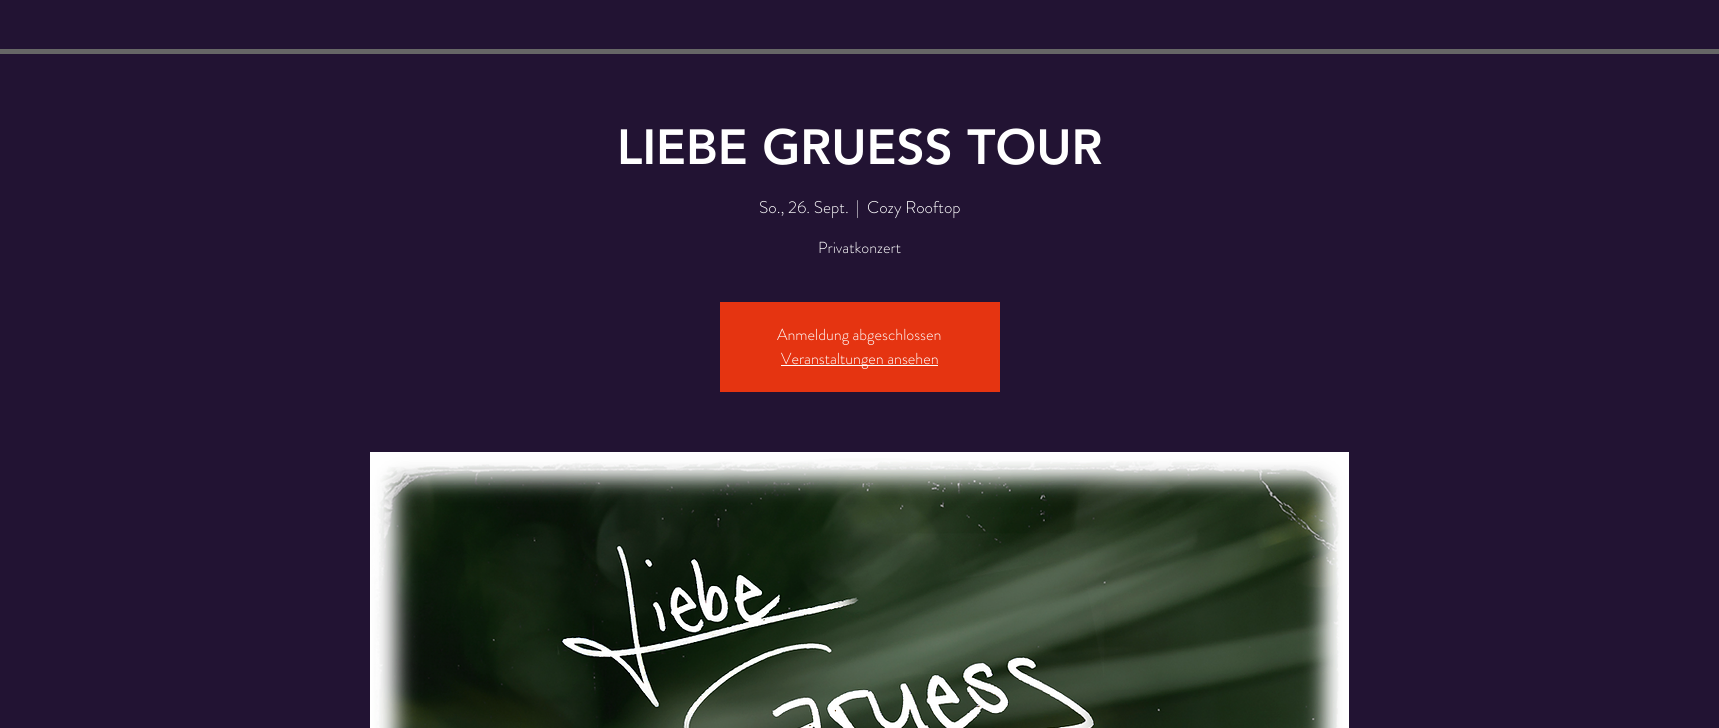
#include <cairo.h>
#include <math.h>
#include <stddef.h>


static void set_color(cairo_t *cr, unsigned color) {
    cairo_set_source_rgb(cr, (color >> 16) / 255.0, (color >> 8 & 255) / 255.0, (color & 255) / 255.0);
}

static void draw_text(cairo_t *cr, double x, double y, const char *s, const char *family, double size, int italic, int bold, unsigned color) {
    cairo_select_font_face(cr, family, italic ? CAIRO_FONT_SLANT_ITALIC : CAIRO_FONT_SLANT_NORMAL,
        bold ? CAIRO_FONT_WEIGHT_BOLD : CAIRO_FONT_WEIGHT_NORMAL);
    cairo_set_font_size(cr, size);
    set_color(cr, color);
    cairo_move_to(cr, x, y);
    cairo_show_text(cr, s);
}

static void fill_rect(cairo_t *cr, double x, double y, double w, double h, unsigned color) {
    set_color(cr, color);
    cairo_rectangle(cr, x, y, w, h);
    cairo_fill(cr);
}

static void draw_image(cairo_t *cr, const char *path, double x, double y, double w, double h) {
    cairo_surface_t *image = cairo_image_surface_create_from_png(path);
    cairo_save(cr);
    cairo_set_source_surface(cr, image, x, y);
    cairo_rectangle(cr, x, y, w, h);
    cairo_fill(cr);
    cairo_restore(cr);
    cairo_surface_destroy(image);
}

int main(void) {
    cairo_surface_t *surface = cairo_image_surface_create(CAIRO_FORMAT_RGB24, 1719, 728);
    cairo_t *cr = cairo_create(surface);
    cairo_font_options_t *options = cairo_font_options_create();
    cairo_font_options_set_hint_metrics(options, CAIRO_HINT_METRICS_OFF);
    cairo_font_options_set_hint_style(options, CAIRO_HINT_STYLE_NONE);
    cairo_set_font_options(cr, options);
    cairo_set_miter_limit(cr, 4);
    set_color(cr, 0x221333);
    cairo_paint(cr);
    fill_rect(cr, 0, 49, 1719, 5, 0x666666);
    draw_text(cr, 617, 164, "LIEBE GRUESS TOUR", "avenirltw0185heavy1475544 Black", 49, 0, 0, 0xFFFFFF);
    draw_text(cr, 759, 213, "So., 26. Sept.", "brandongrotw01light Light", 17, 0, 0, 0xFFFFFF);
    draw_text(cr, 856, 213, "|", "brandongrotw01light Light", 17, 0, 0, 0xFFFFFF);
    draw_text(cr, 867, 213, "Cozy Rooftop", "brandongrotw01light Light", 17, 0, 0, 0xFFFFFF);
    draw_text(cr, 818, 253, "Privatkonzert", "brandongrotw01light Light", 16, 0, 0, 0xFFFFFF);
    fill_rect(cr, 720, 302, 280, 90, 0xE53411);
    draw_text(cr, 777, 340, "Anmeldung abgeschlossen", "brandongrotw01light Light", 16, 0, 0, 0xFFFFFF);
    fill_rect(cr, 781, 365, 157, 1, 0xFFFFFF);
    draw_text(cr, 781, 364, "Veranstaltungen ansehen", "brandongrotw01light Light", 16, 0, 0, 0xFFFFFF);
    draw_image(cr, "assets/img1.png", 370, 452, 979, 276);
    cairo_surface_write_to_png(surface, "output.png");
    cairo_font_options_destroy(options);
    cairo_destroy(cr);
    cairo_surface_destroy(surface);
    return 0;
}
